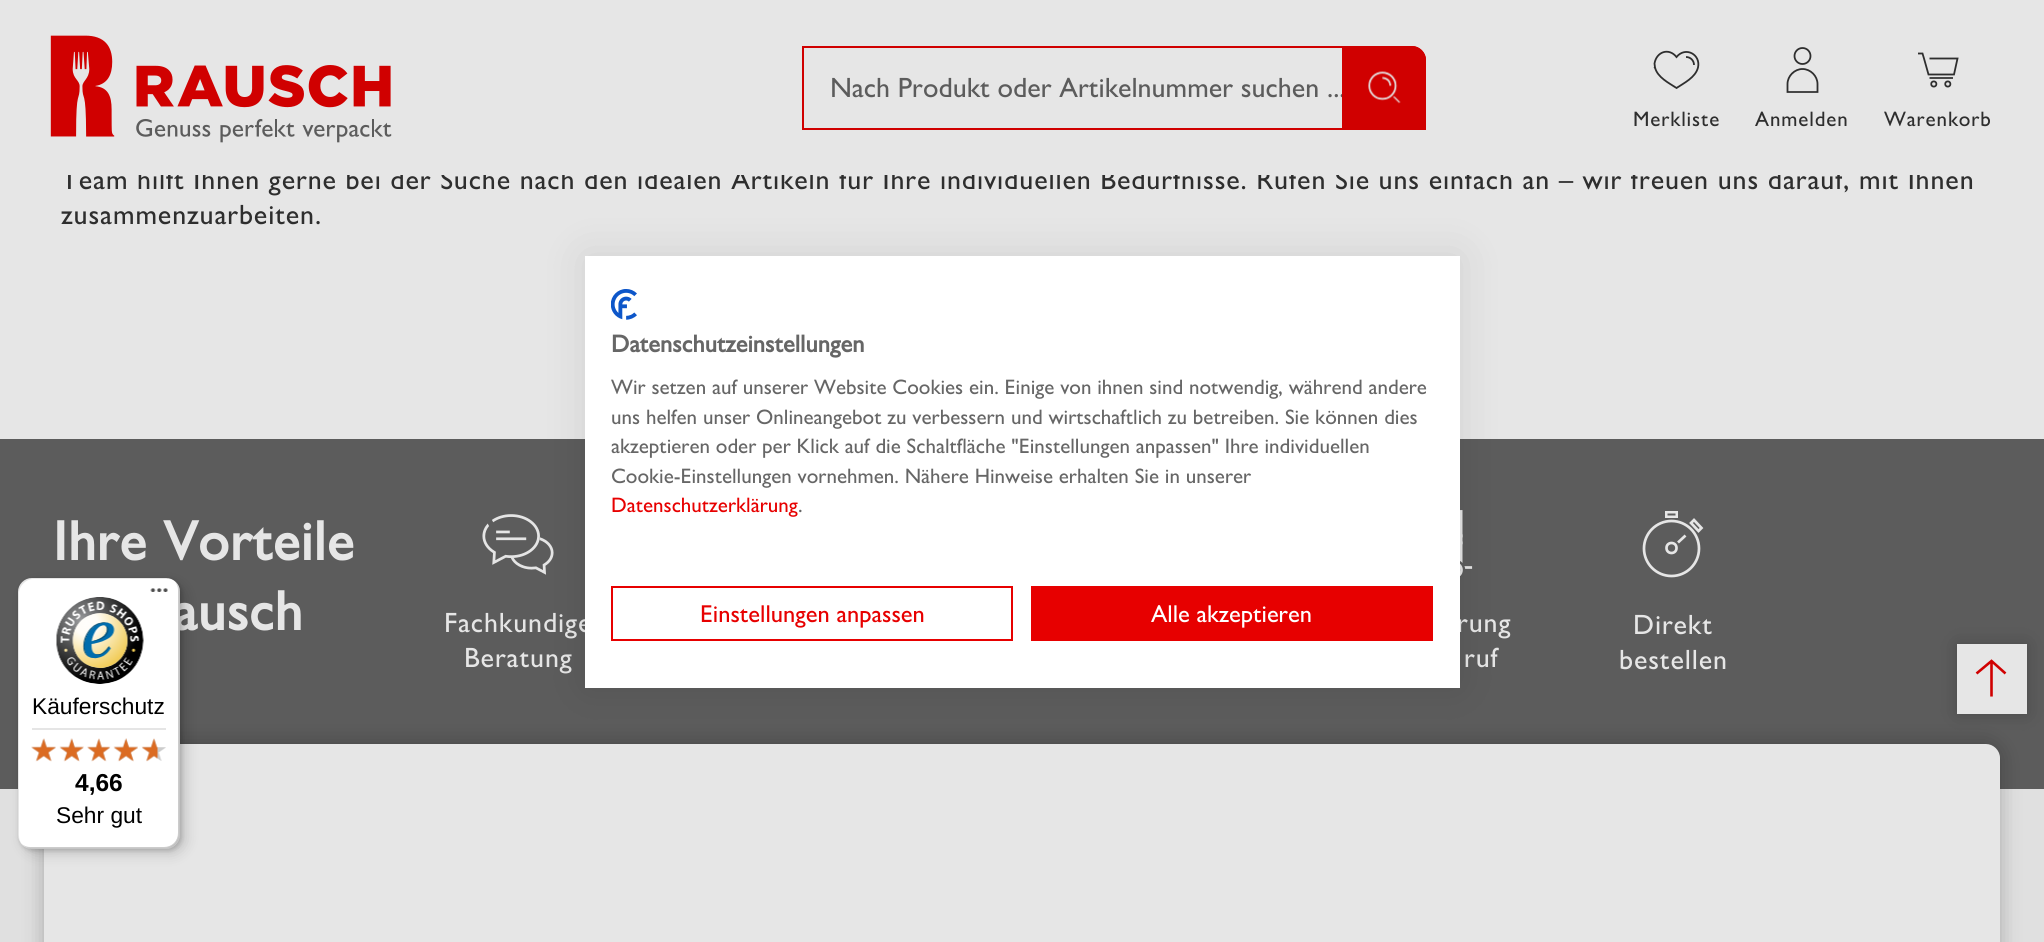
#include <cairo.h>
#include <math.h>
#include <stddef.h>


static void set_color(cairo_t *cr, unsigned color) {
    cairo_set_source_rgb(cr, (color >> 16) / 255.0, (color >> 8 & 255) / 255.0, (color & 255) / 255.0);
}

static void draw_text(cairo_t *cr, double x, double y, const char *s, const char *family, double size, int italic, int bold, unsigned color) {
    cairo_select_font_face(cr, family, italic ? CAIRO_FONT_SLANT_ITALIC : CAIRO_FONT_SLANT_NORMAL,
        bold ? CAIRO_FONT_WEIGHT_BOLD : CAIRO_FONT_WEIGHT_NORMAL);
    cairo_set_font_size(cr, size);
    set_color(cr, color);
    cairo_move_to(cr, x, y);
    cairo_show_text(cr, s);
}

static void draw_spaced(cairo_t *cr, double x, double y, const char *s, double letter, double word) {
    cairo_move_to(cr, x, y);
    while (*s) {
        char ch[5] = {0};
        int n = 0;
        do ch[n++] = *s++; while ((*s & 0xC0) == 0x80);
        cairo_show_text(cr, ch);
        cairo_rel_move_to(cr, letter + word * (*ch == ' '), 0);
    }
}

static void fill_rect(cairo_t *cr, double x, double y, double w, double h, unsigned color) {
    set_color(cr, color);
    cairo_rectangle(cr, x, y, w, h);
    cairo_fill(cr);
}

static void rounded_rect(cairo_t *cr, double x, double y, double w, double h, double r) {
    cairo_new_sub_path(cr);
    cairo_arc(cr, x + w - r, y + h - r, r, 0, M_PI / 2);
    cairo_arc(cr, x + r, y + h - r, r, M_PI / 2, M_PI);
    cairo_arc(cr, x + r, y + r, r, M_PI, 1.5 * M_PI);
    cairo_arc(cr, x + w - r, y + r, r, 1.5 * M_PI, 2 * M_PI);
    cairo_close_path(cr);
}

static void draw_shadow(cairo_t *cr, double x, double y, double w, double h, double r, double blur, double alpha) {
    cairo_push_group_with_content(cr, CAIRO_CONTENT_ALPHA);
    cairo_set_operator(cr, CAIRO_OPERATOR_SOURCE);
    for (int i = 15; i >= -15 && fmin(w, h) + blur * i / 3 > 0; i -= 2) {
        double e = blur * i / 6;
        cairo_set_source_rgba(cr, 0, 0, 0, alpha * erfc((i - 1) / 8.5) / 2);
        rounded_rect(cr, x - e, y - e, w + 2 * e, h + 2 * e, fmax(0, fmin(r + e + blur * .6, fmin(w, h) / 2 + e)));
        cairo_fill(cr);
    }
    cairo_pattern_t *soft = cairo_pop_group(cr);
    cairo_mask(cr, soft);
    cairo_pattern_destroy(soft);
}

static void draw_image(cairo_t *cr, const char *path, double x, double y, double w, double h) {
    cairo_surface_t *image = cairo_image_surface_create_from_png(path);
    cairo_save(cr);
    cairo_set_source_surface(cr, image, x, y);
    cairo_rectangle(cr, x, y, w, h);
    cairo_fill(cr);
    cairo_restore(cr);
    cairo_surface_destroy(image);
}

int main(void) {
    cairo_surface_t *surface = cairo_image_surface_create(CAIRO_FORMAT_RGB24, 2044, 942);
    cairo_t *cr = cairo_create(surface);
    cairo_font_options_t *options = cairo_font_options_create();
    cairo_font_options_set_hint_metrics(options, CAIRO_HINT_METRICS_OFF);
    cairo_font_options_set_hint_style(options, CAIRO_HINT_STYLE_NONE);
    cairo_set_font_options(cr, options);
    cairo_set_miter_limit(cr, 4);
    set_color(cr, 0xE6E6E6);
    cairo_paint(cr);
    cairo_select_font_face(cr, "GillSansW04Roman", CAIRO_FONT_SLANT_NORMAL, CAIRO_FONT_WEIGHT_NORMAL);
    cairo_set_font_size(cr, 28);
    set_color(cr, 0x2E2E2E);
    draw_spaced(cr, 61, 189, "Team hilft Ihnen gerne bei der Suche nach den idealen Artikeln für Ihre individuellen Bedürfnisse. Rufen Sie uns einfach an – wir freuen uns darauf, mit Ihnen", 0.88, 0);
    fill_rect(cr, 61, 169, 1859, 6, 0xE6E6E6);
    draw_image(cr, "assets/img1.png", 50, 35, 342, 108);
    cairo_new_path(cr);
    cairo_move_to(cr, 803, 47);
    cairo_line_to(cr, 1412, 47);
    cairo_curve_to(cr, 1419, 47, 1425, 53, 1425, 60);
    cairo_line_to(cr, 1425, 129);
    cairo_line_to(cr, 803, 129);
    cairo_close_path(cr);
    set_color(cr, 0xD00000);
    cairo_stroke(cr);
    draw_text(cr, 830, 97, "Nach Produkt oder Artikelnummer suchen ...", "GillSansW04Roman", 28, 0, 0, 0x5C5C5C);
    set_color(cr, 0xD00000);
    cairo_new_path(cr);
    cairo_move_to(cr, 1342, 46);
    cairo_line_to(cr, 1412, 46);
    cairo_curve_to(cr, 1419.5, 46, 1426, 52.5, 1426, 60);
    cairo_line_to(cr, 1426, 130);
    cairo_line_to(cr, 1342, 130);
    cairo_close_path(cr);
    cairo_fill(cr);
    draw_image(cr, "assets/img2.png", 1368, 71, 33, 33);
    cairo_new_path(cr);
    cairo_move_to(cr, 1694, 65);
    cairo_curve_to(cr, 1694, 60.5, 1690.5, 57, 1686, 57);
    cairo_move_to(cr, 1654.5, 63.5);
    cairo_curve_to(cr, 1656.5, 51.5, 1669, 47.5, 1676.5, 57);
    cairo_curve_to(cr, 1685.5, 46, 1701, 54.5, 1698, 67.5);
    cairo_curve_to(cr, 1695.5, 77.5, 1684, 83, 1676.5, 88);
    cairo_curve_to(cr, 1669, 83, 1657.5, 77.5, 1655, 67.5);
    cairo_line_to(cr, 1654, 68);
    cairo_line_to(cr, 1655, 67.5);
    cairo_close_path(cr);
    set_color(cr, 0x2E2E2E);
    cairo_set_line_width(cr, 1.8);
    cairo_stroke(cr);
    cairo_set_font_size(cr, 21);
    draw_spaced(cr, 1633, 126, "Merkliste", 0.88, 0);
    cairo_new_path(cr);
    cairo_arc(cr, 1802.5, 56, 8, 0, 2 * M_PI);
    cairo_stroke(cr);
    cairo_new_path(cr);
    cairo_move_to(cr, 1787.5, 92);
    cairo_line_to(cr, 1787.5, 84);
    cairo_curve_to(cr, 1787.5, 76, 1794.5, 69, 1802.5, 69);
    cairo_curve_to(cr, 1810.5, 69, 1817.5, 76, 1817.5, 84);
    cairo_line_to(cr, 1817.5, 92);
    cairo_close_path(cr);
    cairo_stroke(cr);
    draw_spaced(cr, 1755, 126, "Anmelden", 0.88, 0);
    cairo_new_path(cr);
    cairo_move_to(cr, 1918, 53.5);
    cairo_line_to(cr, 1922.5, 53.5);
    cairo_line_to(cr, 1924, 58.5);
    cairo_line_to(cr, 1928.5, 74.5);
    cairo_line_to(cr, 1954, 74.5);
    cairo_line_to(cr, 1957.5, 58.5);
    cairo_line_to(cr, 1929.5, 58.5);
    cairo_move_to(cr, 1929.5, 78);
    cairo_line_to(cr, 1953, 78);
    cairo_stroke(cr);
    cairo_arc(cr, 1933.8, 84, 2.6, 0, 2 * M_PI);
    cairo_stroke(cr);
    cairo_arc(cr, 1947.8, 84, 2.6, 0, 2 * M_PI);
    cairo_stroke(cr);
    draw_spaced(cr, 1884, 126, "Warenkorb", 0.88, 0);
    cairo_set_font_size(cr, 28);
    draw_spaced(cr, 61, 224, "zusammenzuarbeiten.", 0.88, 0);
    fill_rect(cr, 0, 789, 2044, 153, 0xE0E0E0);
    fill_rect(cr, 0, 439, 2044, 350, 0x5C5C5C);
    cairo_select_font_face(cr, "GillSansW04Roman", CAIRO_FONT_SLANT_NORMAL, CAIRO_FONT_WEIGHT_BOLD);
    cairo_set_font_size(cr, 56);
    set_color(cr, 0xE6E6E6);
    draw_spaced(cr, 53, 560, "Ihre Vorteile", 0.88, 0);
    draw_spaced(cr, 173, 630, "ausch", 0.88, 0);
    draw_image(cr, "assets/img3.png", 482, 514, 72, 61);
    cairo_select_font_face(cr, "GillSansW04Roman", CAIRO_FONT_SLANT_NORMAL, CAIRO_FONT_WEIGHT_NORMAL);
    cairo_set_font_size(cr, 28);
    draw_spaced(cr, 444, 632, "Fachkundige", 0.88, 0);
    draw_spaced(cr, 464, 667, "Beratung", 0.88, 0);
    draw_image(cr, "assets/img4.png", 1460, 510, 13, 67);
    draw_spaced(cr, 1457, 632, "rung", 0.88, 0);
    draw_spaced(cr, 1464, 667, "ruf", 0.88, 0);
    cairo_rectangle(cr, 1666.25, 512.25, 10.5, 4.5);
    cairo_set_line_width(cr, 2.5);
    cairo_stroke(cr);
    cairo_arc(cr, 1671.5, 548.5, 27.5, 0, 2 * M_PI);
    cairo_set_line_width(cr, 2.7);
    cairo_stroke(cr);
    cairo_new_path(cr);
    cairo_move_to(cr, 1694, 520);
    cairo_line_to(cr, 1701.5, 528);
    cairo_line_to(cr, 1698.5, 531);
    cairo_line_to(cr, 1691, 523);
    cairo_close_path(cr);
    cairo_stroke(cr);
    cairo_arc(cr, 1671.5, 548, 5, 0, 2 * M_PI);
    cairo_stroke(cr);
    cairo_new_path(cr);
    cairo_move_to(cr, 1678, 542.5);
    cairo_line_to(cr, 1685.5, 535.5);
    cairo_stroke(cr);
    draw_spaced(cr, 1633, 634, "Direkt", 0.88, 0);
    draw_spaced(cr, 1619, 669, "bestellen", 0.88, 0);
    set_color(cr, 0x000000);
    draw_shadow(cr, 44, 744, 1956, 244, 14, 10.5, 0.25);
    set_color(cr, 0xE6E6E6);
    cairo_new_path(cr);
    cairo_move_to(cr, 44, 744);
    cairo_line_to(cr, 1986, 744);
    cairo_curve_to(cr, 1993.5, 744, 2000, 750.5, 2000, 758);
    cairo_line_to(cr, 2000, 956);
    cairo_line_to(cr, 44, 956);
    cairo_close_path(cr);
    cairo_fill(cr);
    set_color(cr, 0x000000);
    draw_shadow(cr, 585, 256, 875, 432, 0, 21, 0.1);
    fill_rect(cr, 585, 256, 875, 432, 0xFFFFFF);
    draw_image(cr, "assets/img5.png", 611, 289, 26, 31);
    draw_text(cr, 611, 352, "Datenschutzeinstellungen", "GillSansW04Roman", 24.5, 0, 1, 0x666666);
    draw_text(cr, 611, 394, "Wir setzen auf unserer Website Cookies ein. Einige von ihnen sind notwendig, während andere", "GillSansW04Roman", 21, 0, 0, 0x666666);
    draw_text(cr, 611, 424, "uns helfen unser Onlineangebot zu verbessern und wirtschaftlich zu betreiben. Sie können dies", "GillSansW04Roman", 21, 0, 0, 0x666666);
    draw_text(cr, 611, 453, "akzeptieren oder per Klick auf die Schaltfläche \"Einstellungen anpassen\" Ihre individuellen", "GillSansW04Roman", 21, 0, 0, 0x666666);
    draw_text(cr, 611, 483, "Cookie-Einstellungen vornehmen. Nähere Hinweise erhalten Sie in unserer", "GillSansW04Roman", 21, 0, 0, 0x666666);
    draw_text(cr, 611, 512, "Datenschutzerklärung", "GillSansW04Roman", 21, 0, 0, 0xE70000);
    draw_text(cr, 798, 512, ".", "GillSansW04Roman", 21, 0, 0, 0x666666);
    cairo_rectangle(cr, 612, 587, 400, 53);
    set_color(cr, 0xE70000);
    cairo_set_line_width(cr, 2);
    cairo_stroke(cr);
    draw_text(cr, 700, 622, "Einstellungen anpassen", "GillSansW04Roman", 24.5, 0, 0, 0xE70000);
    fill_rect(cr, 1031, 586, 402, 55, 0xE70000);
    draw_text(cr, 1151, 622, "Alle akzeptieren", "GillSansW04Roman", 24.5, 0, 0, 0xFFFFFF);
    set_color(cr, 0x000000);
    draw_shadow(cr, 1957, 644, 70, 70, 0, 9, 0.2);
    fill_rect(cr, 1957, 644, 70, 70, 0xE6E6E6);
    cairo_new_path(cr);
    cairo_move_to(cr, 1976.5, 673.5);
    cairo_line_to(cr, 1991.5, 661);
    cairo_line_to(cr, 2005.5, 673.5);
    cairo_move_to(cr, 1991.5, 661);
    cairo_line_to(cr, 1991.5, 696.5);
    set_color(cr, 0xD00000);
    cairo_set_line_width(cr, 2.6);
    cairo_stroke(cr);
    set_color(cr, 0x000000);
    draw_shadow(cr, 23, 583, 163, 271, 14, 7, 0.15);
    draw_shadow(cr, 19, 579, 163, 272, 14, 2, 0.15);
    set_color(cr, 0xFFFFFF);
    rounded_rect(cr, 18, 578, 162, 271, 14);
    cairo_fill(cr);
    cairo_set_source_rgba(cr, 0, 0, 0, 0.1);
    cairo_new_path(cr);
    cairo_move_to(cr, 33, 579);
    cairo_line_to(cr, 168, 579);
    cairo_curve_to(cr, 170, 579, 172, 579, 173, 580);
    cairo_curve_to(cr, 171, 579, 169, 578, 166, 578);
    cairo_line_to(cr, 32, 578);
    cairo_curve_to(cr, 24, 578, 18, 584, 18, 592);
    cairo_line_to(cr, 18, 835);
    cairo_curve_to(cr, 18, 840, 20, 844, 24, 846);
    cairo_curve_to(cr, 21, 844, 19, 840, 19, 836);
    cairo_line_to(cr, 19, 593);
    cairo_curve_to(cr, 19, 586, 26, 579, 33, 579);
    cairo_close_path(cr);
    cairo_fill(cr);
    cairo_set_source_rgba(cr, 0, 0, 0, 0.2);
    cairo_new_path(cr);
    cairo_move_to(cr, 22, 844);
    cairo_curve_to(cr, 24, 847, 28, 849, 32, 849);
    cairo_line_to(cr, 166, 849);
    cairo_curve_to(cr, 174, 849, 180, 843, 180, 835);
    cairo_line_to(cr, 180, 592);
    cairo_curve_to(cr, 180, 588, 178, 584, 175, 582);
    cairo_curve_to(cr, 177, 584, 178, 587, 178, 590);
    cairo_line_to(cr, 178, 833);
    cairo_curve_to(cr, 178, 841, 172, 847, 164, 847);
    cairo_line_to(cr, 30, 847);
    cairo_curve_to(cr, 27, 847, 24, 846, 22, 844);
    cairo_close_path(cr);
    cairo_fill(cr);
    cairo_set_source_rgba(cr, 0.196, 0.196, 0.196, 0.2);
    cairo_new_path(cr);
    cairo_move_to(cr, 23, 846);
    cairo_curve_to(cr, 26, 848, 29, 849, 32, 849);
    cairo_line_to(cr, 166, 849);
    cairo_curve_to(cr, 174, 849, 180, 843, 180, 835);
    cairo_line_to(cr, 180, 592);
    cairo_curve_to(cr, 180, 589, 179, 586, 178, 584);
    cairo_curve_to(cr, 179, 586, 179, 588, 179, 590);
    cairo_line_to(cr, 179, 834);
    cairo_curve_to(cr, 179, 841, 173, 848, 165, 848);
    cairo_line_to(cr, 30, 848);
    cairo_curve_to(cr, 28, 848, 25, 847, 23, 846);
    cairo_close_path(cr);
    cairo_fill(cr);
    cairo_set_source_rgba(cr, 1, 1, 1, 0.3);
    cairo_new_path(cr);
    cairo_move_to(cr, 23, 845);
    cairo_curve_to(cr, 25, 848, 28, 849, 32, 849);
    cairo_line_to(cr, 166, 849);
    cairo_curve_to(cr, 174, 849, 180, 843, 180, 835);
    cairo_line_to(cr, 180, 592);
    cairo_curve_to(cr, 180, 588, 179, 585, 176, 583);
    cairo_curve_to(cr, 178, 585, 179, 588, 179, 591);
    cairo_line_to(cr, 179, 834);
    cairo_curve_to(cr, 179, 842, 173, 848, 165, 848);
    cairo_line_to(cr, 31, 848);
    cairo_curve_to(cr, 28, 848, 25, 847, 23, 845);
    cairo_close_path(cr);
    cairo_fill(cr);
    draw_image(cr, "assets/img6.png", 150, 588, 18, 4);
    draw_image(cr, "assets/img7.png", 56, 597, 88, 87);
    draw_text(cr, 32, 714, "Käuferschutz", "Liberation Sans", 22.75, 0, 0, 0x000000);
    fill_rect(cr, 32, 728, 134, 2, 0xE5E5E5);
    draw_image(cr, "assets/img8.png", 31, 739, 25, 22);
    draw_image(cr, "assets/img9.png", 60, 738, 24, 23);
    draw_image(cr, "assets/img10.png", 87, 739, 23, 22);
    draw_image(cr, "assets/img11.png", 114, 738, 24, 23);
    draw_image(cr, "assets/img12.png", 142, 739, 24, 22);
    draw_image(cr, "assets/img13.png", 31, 738, 25, 24);
    draw_image(cr, "assets/img14.png", 59, 738, 25, 24);
    draw_image(cr, "assets/img15.png", 87, 738, 24, 24);
    draw_image(cr, "assets/img16.png", 113, 738, 25, 24);
    draw_image(cr, "assets/img17.png", 141, 738, 17, 24);
    draw_text(cr, 75, 791, "4,66", "Liberation Sans", 24.5, 0, 1, 0x000000);
    draw_text(cr, 56, 823, "Sehr gut", "Liberation Sans", 22.75, 0, 0, 0x000000);
    cairo_surface_write_to_png(surface, "output.png");
    cairo_font_options_destroy(options);
    cairo_destroy(cr);
    cairo_surface_destroy(surface);
    return 0;
}
